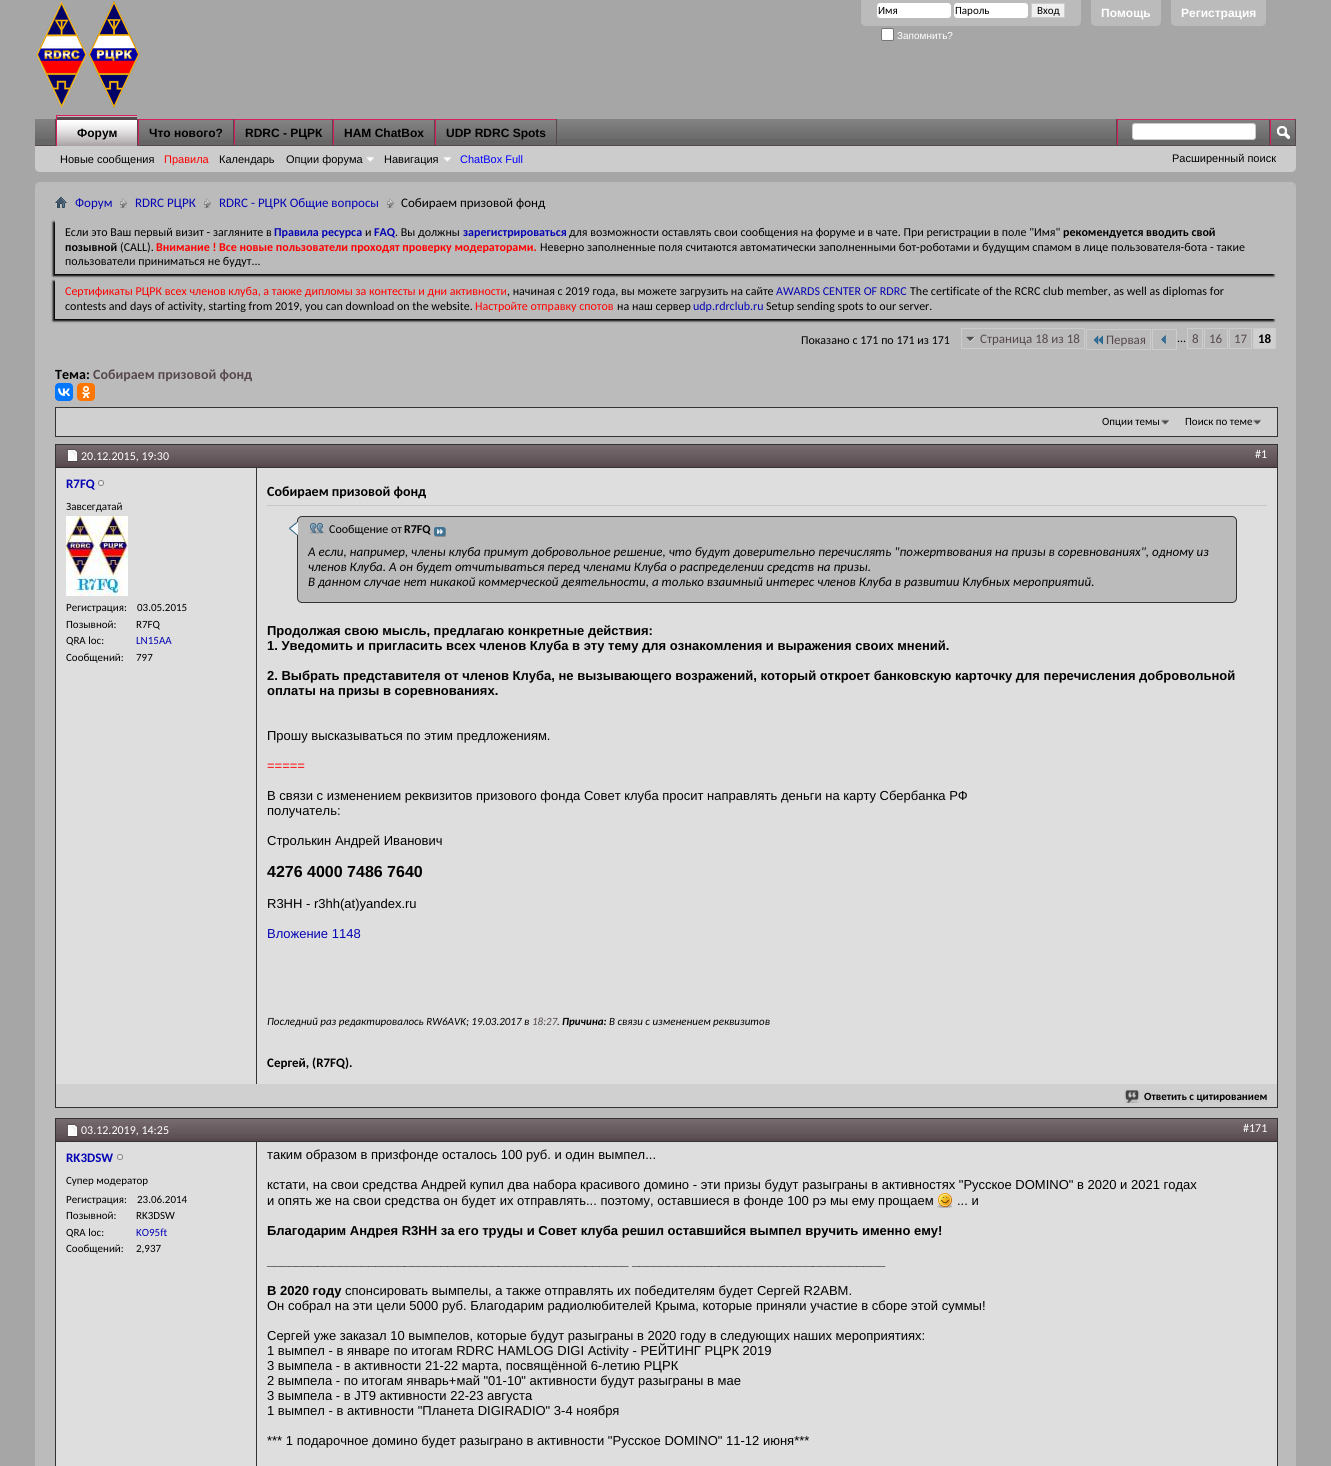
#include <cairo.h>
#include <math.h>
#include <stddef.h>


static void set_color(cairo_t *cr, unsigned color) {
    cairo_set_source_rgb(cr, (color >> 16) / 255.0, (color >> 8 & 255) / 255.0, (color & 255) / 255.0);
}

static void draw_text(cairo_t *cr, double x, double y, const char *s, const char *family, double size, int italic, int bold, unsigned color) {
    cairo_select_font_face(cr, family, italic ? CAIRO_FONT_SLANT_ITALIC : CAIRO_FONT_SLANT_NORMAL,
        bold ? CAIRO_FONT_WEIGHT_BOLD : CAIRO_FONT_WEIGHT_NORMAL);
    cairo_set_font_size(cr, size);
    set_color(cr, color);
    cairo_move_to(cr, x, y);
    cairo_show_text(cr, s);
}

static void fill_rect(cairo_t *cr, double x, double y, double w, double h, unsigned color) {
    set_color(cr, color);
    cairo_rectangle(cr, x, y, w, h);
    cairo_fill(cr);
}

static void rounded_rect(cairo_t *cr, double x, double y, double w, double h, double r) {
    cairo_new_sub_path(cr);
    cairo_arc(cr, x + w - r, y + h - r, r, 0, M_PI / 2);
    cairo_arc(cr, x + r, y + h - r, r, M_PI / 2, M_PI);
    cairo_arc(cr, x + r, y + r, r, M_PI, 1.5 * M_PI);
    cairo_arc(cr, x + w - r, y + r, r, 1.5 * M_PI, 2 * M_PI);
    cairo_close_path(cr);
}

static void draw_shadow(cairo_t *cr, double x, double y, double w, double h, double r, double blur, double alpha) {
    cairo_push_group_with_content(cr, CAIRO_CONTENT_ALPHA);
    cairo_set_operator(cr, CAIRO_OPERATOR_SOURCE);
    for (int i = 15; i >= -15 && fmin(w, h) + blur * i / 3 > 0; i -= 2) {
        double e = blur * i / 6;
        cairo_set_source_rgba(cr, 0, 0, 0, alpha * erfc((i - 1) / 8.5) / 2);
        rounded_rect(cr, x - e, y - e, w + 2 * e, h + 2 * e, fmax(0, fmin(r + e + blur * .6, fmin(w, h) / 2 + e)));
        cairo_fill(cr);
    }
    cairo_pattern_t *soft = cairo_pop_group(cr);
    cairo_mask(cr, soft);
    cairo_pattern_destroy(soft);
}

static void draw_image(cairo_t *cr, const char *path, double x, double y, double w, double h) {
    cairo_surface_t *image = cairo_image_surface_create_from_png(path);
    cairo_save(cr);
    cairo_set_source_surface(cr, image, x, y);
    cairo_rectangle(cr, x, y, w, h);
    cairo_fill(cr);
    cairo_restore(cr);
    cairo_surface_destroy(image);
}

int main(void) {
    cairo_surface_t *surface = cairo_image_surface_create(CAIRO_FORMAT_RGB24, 1331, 1466);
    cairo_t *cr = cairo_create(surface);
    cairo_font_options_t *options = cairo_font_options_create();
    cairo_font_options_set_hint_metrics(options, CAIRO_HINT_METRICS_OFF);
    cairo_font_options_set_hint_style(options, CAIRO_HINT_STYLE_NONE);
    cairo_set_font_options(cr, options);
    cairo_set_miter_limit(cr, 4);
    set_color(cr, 0xA6A6A6);
    cairo_paint(cr);
    draw_image(cr, "assets/img1.png", 36, 1, 51, 107);
    draw_image(cr, "assets/img2.png", 88, 1, 52, 107);
    set_color(cr, 0xBBBBBB);
    cairo_new_path(cr);
    cairo_move_to(cr, 861, 0);
    cairo_line_to(cr, 1081, 0);
    cairo_line_to(cr, 1081, 21);
    cairo_curve_to(cr, 1081, 24, 1079, 26, 1076, 26);
    cairo_line_to(cr, 866, 26);
    cairo_curve_to(cr, 863, 26, 861, 24, 861, 21);
    cairo_close_path(cr);
    cairo_fill(cr);
    set_color(cr, 0xFFFFFF);
    rounded_rect(cr, 877, 3, 74, 15, 3);
    cairo_fill(cr);
    draw_text(cr, 878, 14, "Имя", "Carlito", 11, 0, 0, 0x000000);
    set_color(cr, 0xFFFFFF);
    rounded_rect(cr, 954, 3, 74, 15, 3);
    cairo_fill(cr);
    draw_text(cr, 955, 14, "Пароль", "Carlito", 11, 0, 0, 0x000000);
    set_color(cr, 0xEFEFEF);
    cairo_rectangle(cr, 1031.5, 3.5, 33, 14);
    cairo_fill_preserve(cr);
    set_color(cr, 0xCCCCCC);
    cairo_set_line_width(cr, 1);
    cairo_stroke(cr);
    draw_text(cr, 1037, 14, "Вход", "Carlito", 11, 0, 0, 0x000000);
    set_color(cr, 0xFFFFFF);
    rounded_rect(cr, 881.5, 28.5, 12, 12, 1.5);
    cairo_fill_preserve(cr);
    set_color(cr, 0x767676);
    cairo_stroke(cr);
    draw_text(cr, 897, 39, "Запомнить?", "Liberation Sans", 10, 0, 0, 0xFFFFFF);
    set_color(cr, 0xBBBBBB);
    cairo_new_path(cr);
    cairo_move_to(cr, 1091, 0);
    cairo_line_to(cr, 1161, 0);
    cairo_line_to(cr, 1161, 21);
    cairo_curve_to(cr, 1161, 24, 1159, 26, 1156, 26);
    cairo_line_to(cr, 1096, 26);
    cairo_curve_to(cr, 1093, 26, 1091, 24, 1091, 21);
    cairo_close_path(cr);
    cairo_fill(cr);
    draw_text(cr, 1101, 17, "Помощь", "Liberation Sans", 12, 0, 1, 0xFFFFFF);
    set_color(cr, 0xBBBBBB);
    cairo_new_path(cr);
    cairo_move_to(cr, 1171, 0);
    cairo_line_to(cr, 1266, 0);
    cairo_line_to(cr, 1266, 21);
    cairo_curve_to(cr, 1266, 24, 1264, 26, 1261, 26);
    cairo_line_to(cr, 1176, 26);
    cairo_curve_to(cr, 1173, 26, 1171, 24, 1171, 21);
    cairo_close_path(cr);
    cairo_fill(cr);
    draw_text(cr, 1181, 17, "Регистрация", "Liberation Sans", 12, 0, 1, 0xFFFFFF);
    set_color(cr, 0xCCCCCC);
    cairo_new_path(cr);
    cairo_move_to(cr, 35, 119);
    cairo_line_to(cr, 1296, 119);
    cairo_line_to(cr, 1296, 167);
    cairo_curve_to(cr, 1296, 170, 1294, 172, 1291, 172);
    cairo_line_to(cr, 40, 172);
    cairo_curve_to(cr, 37, 172, 35, 170, 35, 167);
    cairo_close_path(cr);
    cairo_fill(cr);
    fill_rect(cr, 35, 119, 1260, 26, 0x666666);
    draw_image(cr, "assets/img3.png", 35, 119, 1260, 20);
    fill_rect(cr, 137, 119, 1, 26, 0x56484D);
    fill_rect(cr, 55, 119, 1, 26, 0x56484D);
    fill_rect(cr, 57, 116, 80, 29, 0x56484D);
    fill_rect(cr, 233, 119, 1, 27, 0x56484D);
    fill_rect(cr, 138, 119, 95, 1, 0xD51F5F);
    fill_rect(cr, 138, 119, 1, 27, 0xD51F5F);
    fill_rect(cr, 332, 119, 1, 27, 0x56484D);
    fill_rect(cr, 234, 119, 98, 1, 0xD51F5F);
    fill_rect(cr, 234, 119, 1, 27, 0xD51F5F);
    fill_rect(cr, 434, 119, 1, 27, 0x56484D);
    fill_rect(cr, 333, 119, 101, 1, 0xD51F5F);
    fill_rect(cr, 333, 119, 1, 27, 0xD51F5F);
    fill_rect(cr, 556, 119, 1, 27, 0x56484D);
    fill_rect(cr, 435, 119, 121, 1, 0xD51F5F);
    fill_rect(cr, 435, 119, 1, 27, 0xD51F5F);
    fill_rect(cr, 35, 145, 1261, 1, 0x56484D);
    draw_image(cr, "assets/img4.png", 57, 116, 80, 30);
    fill_rect(cr, 56, 115, 81, 1, 0xD51F5F);
    fill_rect(cr, 56, 115, 1, 31, 0xD51F5F);
    draw_text(cr, 77, 137, "Форум", "Liberation Sans", 12, 0, 1, 0x000000);
    fill_rect(cr, 139, 120, 94, 19, 0x666666);
    draw_image(cr, "assets/img5.png", 139, 120, 94, 20);
    draw_text(cr, 149, 137, "Что нового?", "Liberation Sans", 12, 0, 1, 0x000000);
    fill_rect(cr, 235, 120, 97, 19, 0x666666);
    draw_image(cr, "assets/img6.png", 235, 120, 97, 20);
    draw_text(cr, 245, 137, "RDRC - РЦРК", "Liberation Sans", 12, 0, 1, 0x000000);
    fill_rect(cr, 334, 120, 100, 19, 0x666666);
    draw_image(cr, "assets/img7.png", 334, 120, 100, 20);
    draw_text(cr, 344, 137, "HAM ChatBox", "Liberation Sans", 12, 0, 1, 0x000000);
    fill_rect(cr, 436, 120, 120, 19, 0x666666);
    draw_image(cr, "assets/img8.png", 436, 120, 120, 20);
    draw_text(cr, 446, 137, "UDP RDRC Spots", "Liberation Sans", 12, 0, 1, 0x000000);
    draw_text(cr, 60, 163, "Новые сообщения", "Liberation Sans", 11, 0, 0, 0x000000);
    draw_text(cr, 164, 163, "Правила", "Liberation Sans", 11, 0, 0, 0xFF0000);
    draw_text(cr, 219, 163, "Календарь", "Liberation Sans", 11, 0, 0, 0x000000);
    draw_text(cr, 286, 163, "Опции форума", "Liberation Sans", 11, 0, 0, 0x000000);
    draw_image(cr, "assets/img9.png", 366, 156, 8, 6);
    draw_text(cr, 384, 163, "Навигация", "Liberation Sans", 11, 0, 0, 0x000000);
    draw_image(cr, "assets/img9.png", 443, 156, 8, 6);
    draw_text(cr, 460, 163, "ChatBox Full", "Liberation Sans", 11, 0, 0, 0x0000FF);
    fill_rect(cr, 1116, 119, 1, 26, 0x56484D);
    fill_rect(cr, 1117, 119, 152, 1, 0xD51F5F);
    fill_rect(cr, 1117, 119, 1, 26, 0xD51F5F);
    set_color(cr, 0xFFFFFF);
    rounded_rect(cr, 1132.5, 123.5, 123, 16, 2.5);
    cairo_fill_preserve(cr);
    set_color(cr, 0xCCCCCC);
    cairo_stroke(cr);
    fill_rect(cr, 1295, 119, 1, 26, 0x56484D);
    fill_rect(cr, 1269, 119, 1, 26, 0x56484D);
    fill_rect(cr, 1270, 119, 25, 1, 0xD51F5F);
    fill_rect(cr, 1270, 119, 1, 26, 0xD51F5F);
    draw_image(cr, "assets/img10.png", 1277, 126, 13, 14);
    draw_text(cr, 1172, 162, "Расширенный поиск", "Liberation Sans", 11, 0, 0, 0x000000);
    set_color(cr, 0xBBBBBB);
    rounded_rect(cr, 35, 182, 1261, 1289, 5);
    cairo_fill(cr);
    draw_image(cr, "assets/img11.png", 55, 197, 12, 11);
    draw_image(cr, "assets/img12.png", 120, 198, 7, 10);
    draw_text(cr, 75, 207, "Форум", "Carlito", 13, 0, 0, 0x0404B4);
    draw_image(cr, "assets/img12.png", 204, 198, 7, 10);
    draw_text(cr, 135, 207, "RDRC РЦРК", "Carlito", 13, 0, 0, 0x0404B4);
    draw_image(cr, "assets/img12.png", 387, 198, 7, 10);
    draw_text(cr, 219, 207, "RDRC - РЦРК Общие вопросы", "Carlito", 13, 0, 0, 0x0404B4);
    draw_text(cr, 401, 207, "Собираем призовой фонд", "Carlito", 13, 0, 0, 0x000000);
    cairo_save(cr);
    cairo_set_fill_rule(cr, CAIRO_FILL_RULE_EVEN_ODD);
    cairo_new_path(cr);
    cairo_move_to(cr, 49, 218);
    cairo_line_to(cr, 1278, 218);
    cairo_line_to(cr, 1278, 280);
    cairo_line_to(cr, 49, 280);
    cairo_close_path(cr);
    cairo_move_to(cr, 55, 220);
    cairo_line_to(cr, 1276, 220);
    cairo_line_to(cr, 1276, 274);
    cairo_line_to(cr, 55, 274);
    cairo_close_path(cr);
    cairo_clip(cr);
    set_color(cr, 0x000000);
    draw_shadow(cr, 53, 222, 1221, 54, 0, 1, 1);
    cairo_restore(cr);
    draw_text(cr, 65, 236, "Если это Ваш первый визит - загляните в", "Carlito", 12, 0, 0, 0x000000);
    draw_text(cr, 274, 236, "Правила ресурса", "Carlito", 12, 0, 1, 0x0404B4);
    draw_text(cr, 365, 236, "и", "Carlito", 12, 0, 0, 0x000000);
    draw_text(cr, 374, 236, "FAQ", "Carlito", 12, 0, 1, 0x0404B4);
    draw_text(cr, 395, 236, ". Вы должны", "Carlito", 12, 0, 0, 0x000000);
    draw_text(cr, 463, 236, "зарегистрироваться", "Carlito", 12, 0, 1, 0x0404B4);
    draw_text(cr, 569, 236, "для возможности оставлять свои сообщения на форуме и в чате. При регистрации в поле \"Имя\"", "Carlito", 12, 0, 0, 0x000000);
    draw_text(cr, 1063, 236, "рекомендуется вводить свой", "Carlito", 12, 0, 1, 0x000000);
    draw_text(cr, 65, 251, "позывной", "Carlito", 12, 0, 1, 0x000000);
    draw_text(cr, 120, 251, "(CALL).", "Carlito", 12, 0, 0, 0x000000);
    draw_text(cr, 156, 251, "Внимание ! Все новые пользователи проходят проверку модераторами.", "Carlito", 12, 0, 1, 0xFF0000);
    draw_text(cr, 540, 251, "Неверно заполненные поля считаются автоматически заполненными бот-роботами и будущим спамом в лице пользователя-бота - такие", "Carlito", 12, 0, 0, 0x000000);
    draw_text(cr, 65, 265, "пользователи приниматься не будут...", "Carlito", 12, 0, 0, 0x000000);
    cairo_save(cr);
    cairo_set_fill_rule(cr, CAIRO_FILL_RULE_EVEN_ODD);
    cairo_new_path(cr);
    cairo_move_to(cr, 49, 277);
    cairo_line_to(cr, 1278, 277);
    cairo_line_to(cr, 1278, 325);
    cairo_line_to(cr, 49, 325);
    cairo_close_path(cr);
    cairo_move_to(cr, 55, 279);
    cairo_line_to(cr, 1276, 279);
    cairo_line_to(cr, 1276, 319);
    cairo_line_to(cr, 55, 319);
    cairo_close_path(cr);
    cairo_clip(cr);
    set_color(cr, 0x000000);
    draw_shadow(cr, 53, 281, 1221, 40, 0, 1, 1);
    cairo_restore(cr);
    draw_text(cr, 65, 295, "Сертификаты РЦРК всех членов клуба, а также дипломы за контесты и дни активности", "Carlito", 12, 0, 0, 0xFF0000);
    draw_text(cr, 507, 295, ", начиная с 2019 года, вы можете загрузить на сайте", "Carlito", 12, 0, 0, 0x000000);
    draw_text(cr, 776, 295, "AWARDS CENTER OF RDRC", "Carlito", 12, 0, 0, 0x0404B4);
    draw_text(cr, 910, 295, "The certificate of the RCRC club member, as well as diplomas for", "Carlito", 12, 0, 0, 0x000000);
    draw_text(cr, 65, 310, "contests and days of activity, starting from 2019, you can download on the website.", "Carlito", 12, 0, 0, 0x000000);
    draw_text(cr, 475, 310, "Настройте отправку спотов", "Carlito", 12, 0, 0, 0xFF0000);
    draw_text(cr, 617, 310, "на наш сервер", "Carlito", 12, 0, 0, 0x000000);
    draw_text(cr, 693, 310, "udp.rdrclub.ru", "Carlito", 12, 0, 0, 0x0404B4);
    draw_text(cr, 766, 310, "Setup sending spots to our server.", "Carlito", 12, 0, 0, 0x000000);
    draw_text(cr, 801, 344, "Показано с 171 по 171 из 171", "Carlito", 12, 0, 0, 0x000000);
    draw_image(cr, "assets/img13.png", 966, 336, 9, 6);
    cairo_rectangle(cr, 961.5, 328.5, 123, 20);
    set_color(cr, 0xCCCCCC);
    cairo_stroke(cr);
    draw_text(cr, 980, 343, "Страница 18 из 18", "Carlito", 13, 0, 0, 0x56484D);
    draw_image(cr, "assets/img14.png", 1093, 335, 10, 10);
    draw_text(cr, 1106, 344, "Первая", "Carlito", 13, 0, 0, 0x56484D);
    fill_rect(cr, 1086, 329, 65, 1, 0xCCCCCC);
    fill_rect(cr, 1086, 349, 20, 1, 0xCCCCCC);
    fill_rect(cr, 1086, 329, 1, 21, 0xCCCCCC);
    fill_rect(cr, 1150, 329, 1, 21, 0xCCCCCC);
    fill_rect(cr, 1106, 349, 45, 1, 0xCCCCCC);
    cairo_rectangle(cr, 1152.5, 329.5, 24, 20);
    cairo_stroke(cr);
    draw_image(cr, "assets/img15.png", 1161, 335, 5, 9);
    draw_text(cr, 1177, 342, "...", "Carlito", 12, 0, 0, 0x000000);
    cairo_rectangle(cr, 1187.5, 328.5, 15, 20);
    set_color(cr, 0xCCCCCC);
    cairo_stroke(cr);
    draw_text(cr, 1192, 343, "8", "Carlito", 13, 0, 0, 0x56484D);
    cairo_rectangle(cr, 1204.5, 328.5, 23, 20);
    set_color(cr, 0xCCCCCC);
    cairo_stroke(cr);
    draw_text(cr, 1209, 343, "16", "Carlito", 13, 0, 0, 0x56484D);
    cairo_rectangle(cr, 1229.5, 328.5, 22, 20);
    set_color(cr, 0xCCCCCC);
    cairo_stroke(cr);
    draw_text(cr, 1234, 343, "17", "Carlito", 13, 0, 0, 0x56484D);
    set_color(cr, 0xD0D0D0);
    cairo_rectangle(cr, 1253.5, 328.5, 22, 20);
    cairo_fill_preserve(cr);
    set_color(cr, 0xCCCCCC);
    cairo_stroke(cr);
    draw_text(cr, 1258, 343, "18", "Carlito", 13, 0, 1, 0x000000);
    draw_text(cr, 55, 379, "Тема:", "Carlito", 14, 0, 1, 0x000000);
    draw_text(cr, 93, 379, "Собираем призовой фонд", "Carlito", 14, 0, 1, 0x56484D);
    set_color(cr, 0x0077FF);
    rounded_rect(cr, 55, 383, 18, 18, 4);
    cairo_fill(cr);
    draw_image(cr, "assets/img16.png", 58, 388, 12, 8);
    set_color(cr, 0xFF7700);
    rounded_rect(cr, 77, 383, 18, 18, 4);
    cairo_fill(cr);
    draw_image(cr, "assets/img17.png", 82, 386, 8, 12);
    set_color(cr, 0xD0D0D0);
    cairo_rectangle(cr, 55.5, 407.5, 1222, 29);
    cairo_fill_preserve(cr);
    set_color(cr, 0x333333);
    cairo_stroke(cr);
    draw_image(cr, "assets/img18.png", 1161, 419, 9, 7);
    draw_text(cr, 1102, 425, "Опции темы", "Carlito", 11, 0, 0, 0x000000);
    draw_image(cr, "assets/img18.png", 1253, 419, 9, 7);
    draw_text(cr, 1185, 425, "Поиск по теме", "Carlito", 11, 0, 0, 0x000000);
    cairo_rectangle(cr, 55.5, 444.5, 1222, 663);
    set_color(cr, 0x333333);
    cairo_stroke(cr);
    fill_rect(cr, 56, 445, 1221, 22, 0x56484D);
    draw_image(cr, "assets/img19.png", 56, 445, 1221, 20);
    cairo_rectangle(cr, 55.5, 444.5, 1222, 23);
    set_color(cr, 0x333333);
    cairo_stroke(cr);
    draw_image(cr, "assets/img20.png", 67, 449, 11, 13);
    draw_text(cr, 81, 460, "20.12.2015, 19:30", "Carlito", 12, 0, 0, 0xFFFFFF);
    draw_text(cr, 1255, 458, "#1", "Carlito", 12, 0, 0, 0xFFFFFF);
    fill_rect(cr, 56, 468, 1221, 616, 0xDEDEDE);
    draw_text(cr, 66, 488, "R7FQ", "Carlito", 13, 0, 1, 0x0404B4);
    draw_image(cr, "assets/img21.png", 98, 480, 6, 6);
    draw_text(cr, 66, 510, "Завсегдатай", "Carlito", 11, 0, 0, 0x000000);
    draw_image(cr, "assets/img22.png", 66, 516, 62, 80);
    draw_text(cr, 66, 611, "Регистрация:", "Carlito", 11, 0, 0, 0x000000);
    draw_text(cr, 137, 611, "03.05.2015", "Carlito", 11, 0, 0, 0x000000);
    draw_text(cr, 66, 628, "Позывной:", "Carlito", 11, 0, 0, 0x000000);
    draw_text(cr, 136, 628, "R7FQ", "Carlito", 11, 0, 0, 0x000000);
    draw_text(cr, 66, 644, "QRA loc:", "Carlito", 11, 0, 0, 0x000000);
    draw_text(cr, 136, 644, "LN15AA", "Carlito", 11, 0, 0, 0x0404B4);
    draw_text(cr, 66, 661, "Сообщений:", "Carlito", 11, 0, 0, 0x000000);
    draw_text(cr, 136, 661, "797", "Carlito", 11, 0, 0, 0x000000);
    fill_rect(cr, 256, 468, 1, 616, 0x333333);
    fill_rect(cr, 267, 505, 1000, 1, 0xC8C8C8);
    draw_text(cr, 267, 496, "Собираем призовой фонд", "Carlito", 14, 0, 1, 0x000000);
    set_color(cr, 0xBBBBBB);
    rounded_rect(cr, 297.5, 516.5, 939, 86, 4.5);
    cairo_fill_preserve(cr);
    set_color(cr, 0x333333);
    cairo_stroke(cr);
    draw_image(cr, "assets/img23.png", 289, 522, 9, 13);
    draw_image(cr, "assets/img24.png", 309, 523, 16, 11);
    draw_text(cr, 329, 533, "Сообщение от", "Carlito", 12, 0, 0, 0x000000);
    draw_text(cr, 404, 533, "R7FQ", "Carlito", 12, 0, 1, 0x000000);
    draw_image(cr, "assets/img25.png", 434, 527, 12, 10);
    draw_text(cr, 308, 556, "А если, например, члены клуба примут добровольное решение, что будут доверительно перечислять \"пожертвования на призы в соревнованиях\", одному из", "Carlito", 13, 1, 0, 0x000000);
    draw_text(cr, 308, 571, "членов Клуба. А он будет отчитываться перед членами Клуба о распределении средств на призы.", "Carlito", 13, 1, 0, 0x000000);
    draw_text(cr, 308, 586, "В данном случае нет никакой коммерческой деятельности, а только взаимный интерес членов Клуба в развитии Клубных мероприятий.", "Carlito", 13, 1, 0, 0x000000);
    draw_text(cr, 267, 635, "Продолжая свою мысль, предлагаю конкретные действия:", "Liberation Sans", 13, 0, 1, 0x000000);
    draw_text(cr, 267, 650, "1. Уведомить и пригласить всех членов Клуба в эту тему для ознакомления и выражения своих мнений.", "Liberation Sans", 13, 0, 1, 0x000000);
    draw_text(cr, 267, 680, "2. Выбрать представителя от членов Клуба, не вызывающего возражений, который откроет банковскую карточку для перечисления добровольной", "Liberation Sans", 13, 0, 1, 0x000000);
    draw_text(cr, 267, 695, "оплаты на призы в соревнованиях.", "Liberation Sans", 13, 0, 1, 0x000000);
    draw_text(cr, 267, 740, "Прошу высказываться по этим предложениям.", "Liberation Sans", 13, 0, 0, 0x000000);
    draw_text(cr, 267, 770, "=====", "Liberation Sans", 13, 0, 0, 0xFF0000);
    draw_text(cr, 267, 800, "В связи с изменением реквизитов призового фонда Cовет клуба просит направлять деньги на карту Сбербанка РФ", "Liberation Sans", 13, 0, 0, 0x000000);
    draw_text(cr, 267, 815, "получатель:", "Liberation Sans", 13, 0, 0, 0x000000);
    draw_text(cr, 267, 845, "Стролькин Андрей Иванович", "Liberation Sans", 13, 0, 0, 0x000000);
    draw_text(cr, 267, 877, "4276 4000 7486 7640", "Liberation Sans", 16, 0, 1, 0x000000);
    draw_text(cr, 267, 908, "R3HH - r3hh(at)yandex.ru", "Liberation Sans", 13, 0, 0, 0x000000);
    draw_text(cr, 267, 938, "Вложение 1148", "Liberation Sans", 13, 0, 0, 0x0404B4);
    draw_text(cr, 267, 1025, "Последний раз редактировалось RW6AVK; 19.03.2017 в", "Carlito", 11, 1, 0, 0x000000);
    draw_text(cr, 532, 1025, "18:27", "Carlito", 11, 1, 0, 0x56484D);
    draw_text(cr, 562, 1025, "Причина:", "Carlito", 11, 1, 1, 0x000000);
    draw_text(cr, 609, 1025, "В связи с изменением реквизитов", "Carlito", 11, 1, 0, 0x000000);
    draw_text(cr, 557, 1025, ".", "Carlito", 11, 1, 0, 0x000000);
    draw_text(cr, 267, 1067, "Сергей, (R7FQ).", "Carlito", 13, 0, 1, 0x000000);
    fill_rect(cr, 56, 1084, 1221, 23, 0xD0D0D0);
    fill_rect(cr, 1124, 1090, 143, 13, 0xCCCCCC);
    draw_image(cr, "assets/img26.png", 1125, 1090, 14, 13);
    draw_text(cr, 1144, 1100, "Ответить с цитированием", "Carlito", 11, 0, 1, 0x000000);
    cairo_rectangle(cr, 55.5, 1118.5, 1222, 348);
    set_color(cr, 0x333333);
    cairo_stroke(cr);
    fill_rect(cr, 56, 1119, 1221, 22, 0x56484D);
    draw_image(cr, "assets/img19.png", 56, 1119, 1221, 20);
    cairo_rectangle(cr, 55.5, 1118.5, 1222, 23);
    set_color(cr, 0x333333);
    cairo_stroke(cr);
    draw_image(cr, "assets/img27.png", 67, 1124, 11, 13);
    draw_text(cr, 81, 1134, "03.12.2019, 14:25", "Carlito", 12, 0, 0, 0xFFFFFF);
    draw_text(cr, 1243, 1132, "#171", "Carlito", 12, 0, 0, 0xFFFFFF);
    fill_rect(cr, 56, 1142, 1221, 324, 0xDEDEDE);
    draw_text(cr, 66, 1162, "RK3DSW", "Carlito", 13, 0, 1, 0x0404B4);
    draw_image(cr, "assets/img21.png", 117, 1154, 6, 6);
    draw_text(cr, 66, 1184, "Супер модератор", "Carlito", 11, 0, 0, 0x000000);
    draw_text(cr, 66, 1203, "Регистрация:", "Carlito", 11, 0, 0, 0x000000);
    draw_text(cr, 137, 1203, "23.06.2014", "Carlito", 11, 0, 0, 0x000000);
    draw_text(cr, 66, 1219, "Позывной:", "Carlito", 11, 0, 0, 0x000000);
    draw_text(cr, 136, 1219, "RK3DSW", "Carlito", 11, 0, 0, 0x000000);
    draw_text(cr, 66, 1236, "QRA loc:", "Carlito", 11, 0, 0, 0x000000);
    draw_text(cr, 136, 1236, "KO95ft", "Carlito", 11, 0, 0, 0x0404B4);
    draw_text(cr, 66, 1252, "Сообщений:", "Carlito", 11, 0, 0, 0x000000);
    draw_text(cr, 136, 1252, "2,937", "Carlito", 11, 0, 0, 0x000000);
    fill_rect(cr, 256, 1142, 1, 324, 0x333333);
    draw_text(cr, 267, 1159, "таким образом в призфонде осталось 100 руб. и один вымпел...", "Liberation Sans", 13, 0, 0, 0x000000);
    draw_text(cr, 267, 1189, "кстати, на свои средства Андрей купил два набора красивого домино - эти призы будут разыграны в активностях \"Русское DOMINO\" в 2020 и 2021 годах", "Liberation Sans", 13, 0, 0, 0x000000);
    draw_text(cr, 267, 1205, "и опять же на свои средства он будет их отправлять... поэтому, оставшиеся в фонде 100 рэ мы ему прощаем", "Liberation Sans", 13, 0, 0, 0x000000);
    draw_image(cr, "assets/img28.png", 937, 1193, 15, 15);
    draw_text(cr, 957, 1205, "... и", "Liberation Sans", 13, 0, 0, 0x000000);
    draw_text(cr, 267, 1235, "Благодарим Андрея R3HH за его труды и Совет клуба решил оставшийся вымпел вручить именно ему!", "Liberation Sans", 13, 0, 1, 0x000000);
    draw_text(cr, 267, 1265, "__________________________________________________ ___________________________________", "Liberation Sans", 13, 0, 1, 0x000000);
    draw_text(cr, 267, 1295, "В 2020 году", "Liberation Sans", 13, 0, 1, 0x000000);
    draw_text(cr, 345, 1295, "спонсировать вымпелы, а также отправлять их победителям будет Сергей R2ABM.", "Liberation Sans", 13, 0, 0, 0x000000);
    draw_text(cr, 267, 1310, "Он собрал на эти цели 5000 руб. Благодарим радиолюбителей Крыма, которые приняли участие в сборе этой суммы!", "Liberation Sans", 13, 0, 0, 0x000000);
    draw_text(cr, 267, 1340, "Сергей уже заказал 10 вымпелов, которые будут разыграны в 2020 году в следующих наших мероприятиях:", "Liberation Sans", 13, 0, 0, 0x000000);
    draw_text(cr, 267, 1355, "1 вымпел - в январе по итогам RDRC HAMLOG DIGI Activity - РЕЙТИНГ РЦРК 2019", "Liberation Sans", 13, 0, 0, 0x000000);
    draw_text(cr, 267, 1370, "3 вымпела - в активности 21-22 марта, посвящённой 6-летию РЦРК", "Liberation Sans", 13, 0, 0, 0x000000);
    draw_text(cr, 267, 1385, "2 вымпела - по итогам январь+май \"01-10\" активности будут разыграны в мае", "Liberation Sans", 13, 0, 0, 0x000000);
    draw_text(cr, 267, 1400, "3 вымпела - в JT9 активности 22-23 августа", "Liberation Sans", 13, 0, 0, 0x000000);
    draw_text(cr, 267, 1415, "1 вымпел - в активности \"Планета DIGIRADIO\" 3-4 ноября", "Liberation Sans", 13, 0, 0, 0x000000);
    draw_text(cr, 267, 1445, "*** 1 подарочное домино будет разыграно в активности \"Русское DOMINO\" 11-12 июня***", "Liberation Sans", 13, 0, 0, 0x000000);
    cairo_surface_write_to_png(surface, "output.png");
    cairo_font_options_destroy(options);
    cairo_destroy(cr);
    cairo_surface_destroy(surface);
    return 0;
}
